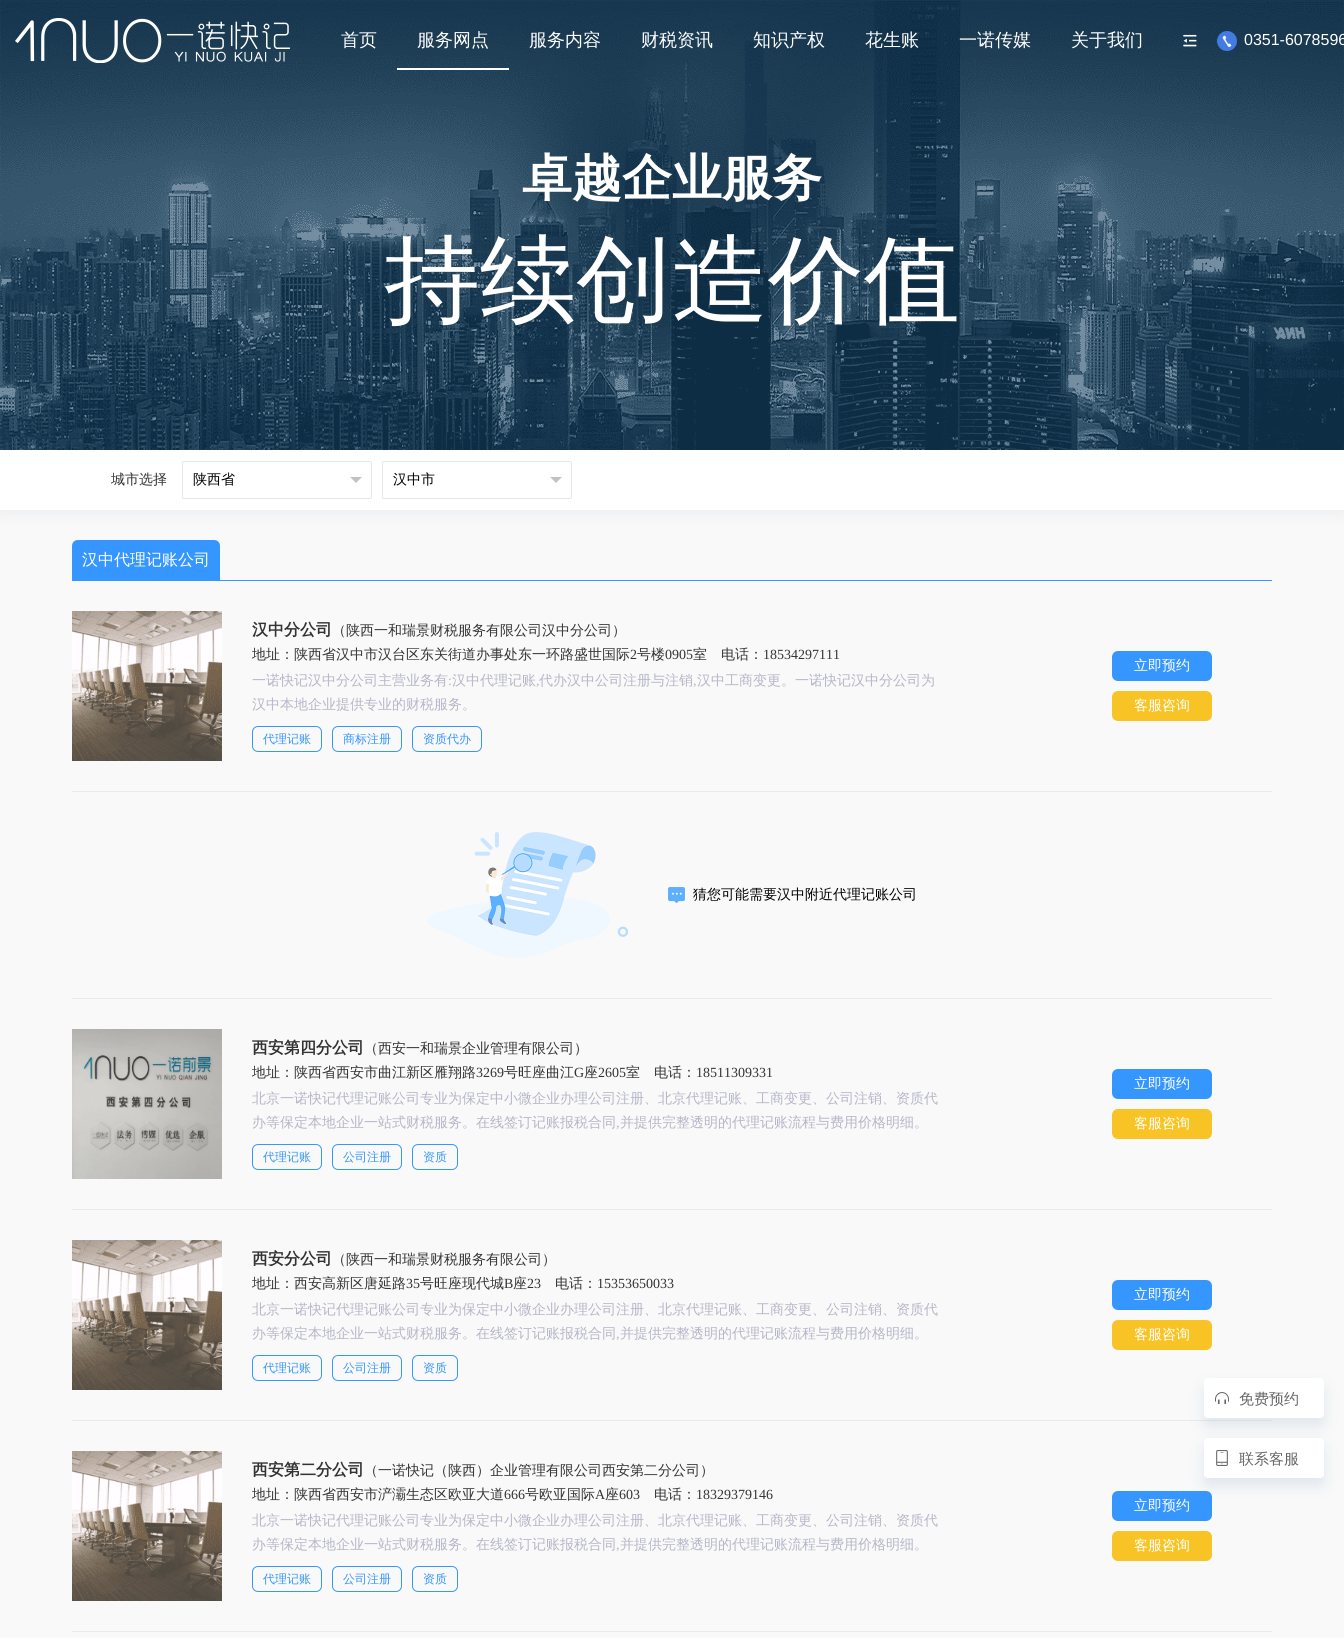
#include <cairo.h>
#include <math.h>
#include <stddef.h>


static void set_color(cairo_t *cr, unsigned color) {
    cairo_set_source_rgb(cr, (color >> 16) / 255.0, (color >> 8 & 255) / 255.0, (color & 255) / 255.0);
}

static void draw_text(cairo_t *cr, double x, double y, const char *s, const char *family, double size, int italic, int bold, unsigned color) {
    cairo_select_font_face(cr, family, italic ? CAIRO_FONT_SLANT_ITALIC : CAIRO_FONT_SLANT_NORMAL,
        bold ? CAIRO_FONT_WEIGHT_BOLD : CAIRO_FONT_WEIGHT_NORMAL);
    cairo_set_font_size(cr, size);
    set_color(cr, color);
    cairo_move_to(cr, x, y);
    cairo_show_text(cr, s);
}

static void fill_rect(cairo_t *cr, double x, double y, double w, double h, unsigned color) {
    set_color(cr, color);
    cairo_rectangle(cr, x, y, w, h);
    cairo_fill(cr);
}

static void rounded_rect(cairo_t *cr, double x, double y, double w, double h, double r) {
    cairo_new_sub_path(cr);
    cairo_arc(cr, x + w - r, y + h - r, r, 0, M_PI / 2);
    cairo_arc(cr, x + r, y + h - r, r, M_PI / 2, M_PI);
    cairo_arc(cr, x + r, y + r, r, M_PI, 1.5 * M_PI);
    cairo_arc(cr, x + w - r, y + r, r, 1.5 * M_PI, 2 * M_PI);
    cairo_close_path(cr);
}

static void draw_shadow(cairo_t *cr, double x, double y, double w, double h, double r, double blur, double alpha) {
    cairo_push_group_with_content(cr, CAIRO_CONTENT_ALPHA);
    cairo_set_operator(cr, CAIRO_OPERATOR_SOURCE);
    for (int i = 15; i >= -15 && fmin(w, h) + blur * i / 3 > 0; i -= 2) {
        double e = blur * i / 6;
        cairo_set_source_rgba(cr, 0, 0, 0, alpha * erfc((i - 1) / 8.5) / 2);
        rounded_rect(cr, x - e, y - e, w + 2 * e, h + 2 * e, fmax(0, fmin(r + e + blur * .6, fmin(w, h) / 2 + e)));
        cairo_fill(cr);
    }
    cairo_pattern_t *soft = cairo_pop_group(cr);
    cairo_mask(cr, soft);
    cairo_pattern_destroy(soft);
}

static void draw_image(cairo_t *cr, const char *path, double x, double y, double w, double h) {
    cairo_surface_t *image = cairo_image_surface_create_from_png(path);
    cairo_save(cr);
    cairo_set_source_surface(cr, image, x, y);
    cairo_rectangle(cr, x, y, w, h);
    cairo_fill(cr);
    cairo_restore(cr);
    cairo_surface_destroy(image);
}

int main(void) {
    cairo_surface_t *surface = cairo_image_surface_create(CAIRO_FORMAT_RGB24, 1344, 1638);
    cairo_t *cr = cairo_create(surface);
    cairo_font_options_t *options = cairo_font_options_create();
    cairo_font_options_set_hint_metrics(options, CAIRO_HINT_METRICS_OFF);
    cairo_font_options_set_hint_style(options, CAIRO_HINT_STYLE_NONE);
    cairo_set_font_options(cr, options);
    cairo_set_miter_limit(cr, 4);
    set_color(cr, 0xF9F9F9);
    cairo_paint(cr);
    draw_image(cr, "assets/img4.png", 0, 0, 1344, 450);
    draw_image(cr, "assets/img1.png", 15, 18, 275, 45);
    draw_text(cr, 341, 46, "首页", "WenQuanYi Zen Hei Medium", 18, 0, 0, 0xFFFFFF);
    draw_text(cr, 417, 46, "服务网点", "WenQuanYi Zen Hei Medium", 18, 0, 0, 0xFFFFFF);
    fill_rect(cr, 397, 68, 112, 2, 0xFFFFFF);
    draw_text(cr, 529, 46, "服务内容", "WenQuanYi Zen Hei Medium", 18, 0, 0, 0xFFFFFF);
    draw_text(cr, 641, 46, "财税资讯", "WenQuanYi Zen Hei Medium", 18, 0, 0, 0xFFFFFF);
    draw_text(cr, 753, 46, "知识产权", "WenQuanYi Zen Hei Medium", 18, 0, 0, 0xFFFFFF);
    draw_text(cr, 865, 46, "花生账", "WenQuanYi Zen Hei Medium", 18, 0, 0, 0xFFFFFF);
    draw_text(cr, 959, 46, "一诺传媒", "WenQuanYi Zen Hei Medium", 18, 0, 0, 0xFFFFFF);
    draw_text(cr, 1071, 46, "关于我们", "WenQuanYi Zen Hei Medium", 18, 0, 0, 0xFFFFFF);
    draw_image(cr, "assets/img2.png", 1183, 34, 14, 13);
    draw_image(cr, "assets/img3.png", 1216, 31, 21, 20);
    draw_text(cr, 1244, 45, "0351-6078596", "Liberation Sans", 16, 0, 0, 0xFFFFFF);
    draw_text(cr, 522, 195, "卓越企业服务", "WenQuanYi Zen Hei", 50, 0, 1, 0xFFFFFF);
    draw_text(cr, 384, 313, "持续创造价值", "WenQuanYi Zen Hei Medium", 96, 0, 0, 0xFFFFFF);
    set_color(cr, 0x091C4E);
    draw_shadow(cr, 0, 455, 1344, 60, 0, 7.5, 0.05);
    fill_rect(cr, 0, 450, 1344, 60, 0xFFFFFF);
    draw_text(cr, 111, 484, "城市选择", "WenQuanYi Zen Hei Medium", 14, 0, 0, 0x333333);
    rounded_rect(cr, 182.5, 461.5, 189, 37, 1.5);
    set_color(cr, 0xE6E6E6);
    cairo_set_line_width(cr, 1);
    cairo_stroke(cr);
    draw_text(cr, 193, 484, "陕西省", "WenQuanYi Zen Hei Medium", 14, 0, 0, 0x000000);
    set_color(cr, 0xC2C2C2);
    cairo_new_path(cr);
    cairo_move_to(cr, 350, 477);
    cairo_line_to(cr, 362, 477);
    cairo_line_to(cr, 356, 483);
    cairo_close_path(cr);
    cairo_fill(cr);
    rounded_rect(cr, 382.5, 461.5, 189, 37, 1.5);
    set_color(cr, 0xE6E6E6);
    cairo_stroke(cr);
    draw_text(cr, 393, 484, "汉中市", "WenQuanYi Zen Hei Medium", 14, 0, 0, 0x000000);
    set_color(cr, 0xC2C2C2);
    cairo_new_path(cr);
    cairo_move_to(cr, 550, 477);
    cairo_line_to(cr, 562, 477);
    cairo_line_to(cr, 556, 483);
    cairo_close_path(cr);
    cairo_fill(cr);
    fill_rect(cr, 72, 580, 1200, 1, 0x3696FF);
    cairo_new_path(cr);
    cairo_move_to(cr, 78, 540);
    cairo_line_to(cr, 214, 540);
    cairo_curve_to(cr, 217.5, 540, 220, 542.5, 220, 546);
    cairo_line_to(cr, 220, 580);
    cairo_line_to(cr, 72, 580);
    cairo_line_to(cr, 72, 546);
    cairo_curve_to(cr, 72, 542.5, 74.5, 540, 78, 540);
    cairo_close_path(cr);
    cairo_fill(cr);
    draw_text(cr, 82, 565, "汉中代理记账公司", "WenQuanYi Zen Hei Medium", 16, 0, 0, 0xFFFFFF);
    fill_rect(cr, 72, 791, 1200, 1, 0xEAEAEA);
    draw_image(cr, "assets/img5.png", 72, 611, 150, 150);
    draw_text(cr, 252, 635, "汉中分公司", "WenQuanYi Zen Hei", 16, 0, 1, 0x333333);
    draw_text(cr, 332, 635, "（陕西一和瑞景财税服务有限公司汉中分公司）", "WenQuanYi Zen Hei Medium", 14, 0, 0, 0x333333);
    draw_text(cr, 252, 659, "地址：陕西省汉中市汉台区东关街道办事处东一环路盛世国际", "WenQuanYi Zen Hei Medium", 14, 0, 0, 0x333333);
    draw_text(cr, 630, 659, "2", "Liberation Serif", 14, 0, 0, 0x333333);
    draw_text(cr, 637, 659, "号楼", "WenQuanYi Zen Hei Medium", 14, 0, 0, 0x333333);
    draw_text(cr, 665, 659, "0905", "Liberation Serif", 14, 0, 0, 0x333333);
    draw_text(cr, 693, 659, "室", "WenQuanYi Zen Hei Medium", 14, 0, 0, 0x333333);
    draw_text(cr, 721, 659, "电话：", "WenQuanYi Zen Hei Medium", 14, 0, 0, 0x333333);
    draw_text(cr, 763, 659, "18534297111", "Liberation Serif", 14, 0, 0, 0x333333);
    draw_text(cr, 252, 685, "一诺快记汉中分公司主营业务有", "WenQuanYi Zen Hei Medium", 14, 0, 0, 0xB6B6C8);
    draw_text(cr, 448, 685, ":", "Liberation Serif", 14, 0, 0, 0xB6B6C8);
    draw_text(cr, 452, 685, "汉中代理记账", "WenQuanYi Zen Hei Medium", 14, 0, 0, 0xB6B6C8);
    draw_text(cr, 536, 685, ",", "Liberation Serif", 14, 0, 0, 0xB6B6C8);
    draw_text(cr, 539, 685, "代办汉中公司注册与注销", "WenQuanYi Zen Hei Medium", 14, 0, 0, 0xB6B6C8);
    draw_text(cr, 693, 685, ",", "Liberation Serif", 14, 0, 0, 0xB6B6C8);
    draw_text(cr, 697, 685, "汉中工商变更。一诺快记汉中分公司为", "WenQuanYi Zen Hei Medium", 14, 0, 0, 0xB6B6C8);
    draw_text(cr, 252, 709, "汉中本地企业提供专业的财税服务。", "WenQuanYi Zen Hei Medium", 14, 0, 0, 0xB6B6C8);
    rounded_rect(cr, 252.5, 726.5, 69, 25, 5.5);
    set_color(cr, 0x3696FF);
    cairo_stroke(cr);
    draw_text(cr, 263, 743, "代理记账", "WenQuanYi Zen Hei Medium", 12, 0, 0, 0x3696FF);
    rounded_rect(cr, 332.5, 726.5, 69, 25, 5.5);
    cairo_stroke(cr);
    draw_text(cr, 343, 743, "商标注册", "WenQuanYi Zen Hei Medium", 12, 0, 0, 0x3696FF);
    rounded_rect(cr, 412.5, 726.5, 69, 25, 5.5);
    cairo_stroke(cr);
    draw_text(cr, 423, 743, "资质代办", "WenQuanYi Zen Hei Medium", 12, 0, 0, 0x3696FF);
    rounded_rect(cr, 1112, 651, 100, 30, 6);
    cairo_fill(cr);
    draw_text(cr, 1134, 670, "立即预约", "WenQuanYi Zen Hei Medium", 14, 0, 0, 0xFFFFFF);
    set_color(cr, 0xF8C425);
    rounded_rect(cr, 1112, 691, 100, 30, 6);
    cairo_fill(cr);
    draw_text(cr, 1134, 710, "客服咨询", "WenQuanYi Zen Hei Medium", 14, 0, 0, 0xFFFFFF);
    draw_image(cr, "assets/img6.png", 427, 832, 201, 126);
    draw_image(cr, "assets/img7.png", 668, 887, 17, 16);
    draw_text(cr, 693, 899, "猜您可能需要汉中附近代理记账公司", "WenQuanYi Zen Hei Medium", 14, 0, 0, 0x000000);
    fill_rect(cr, 72, 998, 1200, 1, 0xEAEAEA);
    fill_rect(cr, 72, 1209, 1200, 1, 0xEAEAEA);
    draw_image(cr, "assets/img8.png", 72, 1029, 150, 150);
    draw_text(cr, 252, 1053, "西安第四分公司", "WenQuanYi Zen Hei", 16, 0, 1, 0x333333);
    draw_text(cr, 364, 1053, "（西安一和瑞景企业管理有限公司）", "WenQuanYi Zen Hei Medium", 14, 0, 0, 0x333333);
    draw_text(cr, 252, 1077, "地址：陕西省西安市曲江新区雁翔路", "WenQuanYi Zen Hei Medium", 14, 0, 0, 0x333333);
    draw_text(cr, 476, 1077, "3269", "Liberation Serif", 14, 0, 0, 0x333333);
    draw_text(cr, 504, 1077, "号旺座曲江", "WenQuanYi Zen Hei Medium", 14, 0, 0, 0x333333);
    draw_text(cr, 574, 1077, "G", "Liberation Serif", 14, 0, 0, 0x333333);
    draw_text(cr, 584, 1077, "座", "WenQuanYi Zen Hei Medium", 14, 0, 0, 0x333333);
    draw_text(cr, 598, 1077, "2605", "Liberation Serif", 14, 0, 0, 0x333333);
    draw_text(cr, 626, 1077, "室", "WenQuanYi Zen Hei Medium", 14, 0, 0, 0x333333);
    draw_text(cr, 654, 1077, "电话：", "WenQuanYi Zen Hei Medium", 14, 0, 0, 0x333333);
    draw_text(cr, 696, 1077, "18511309331", "Liberation Serif", 14, 0, 0, 0x333333);
    draw_text(cr, 252, 1103, "北京一诺快记代理记账公司专业为保定中小微企业办理公司注册、北京代理记账、工商变更、公司注销、资质代", "WenQuanYi Zen Hei Medium", 14, 0, 0, 0xB6B6C8);
    draw_text(cr, 252, 1127, "办等保定本地企业一站式财税服务。在线签订记账报税合同", "WenQuanYi Zen Hei Medium", 14, 0, 0, 0xB6B6C8);
    draw_text(cr, 616, 1127, ",", "Liberation Serif", 14, 0, 0, 0xB6B6C8);
    draw_text(cr, 620, 1127, "并提供完整透明的代理记账流程与费用价格明细。", "WenQuanYi Zen Hei Medium", 14, 0, 0, 0xB6B6C8);
    rounded_rect(cr, 252.5, 1144.5, 69, 25, 5.5);
    set_color(cr, 0x3696FF);
    cairo_stroke(cr);
    draw_text(cr, 263, 1161, "代理记账", "WenQuanYi Zen Hei Medium", 12, 0, 0, 0x3696FF);
    rounded_rect(cr, 332.5, 1144.5, 69, 25, 5.5);
    cairo_stroke(cr);
    draw_text(cr, 343, 1161, "公司注册", "WenQuanYi Zen Hei Medium", 12, 0, 0, 0x3696FF);
    rounded_rect(cr, 412.5, 1144.5, 45, 25, 5.5);
    cairo_stroke(cr);
    draw_text(cr, 423, 1161, "资质", "WenQuanYi Zen Hei Medium", 12, 0, 0, 0x3696FF);
    rounded_rect(cr, 1112, 1069, 100, 30, 6);
    cairo_fill(cr);
    draw_text(cr, 1134, 1088, "立即预约", "WenQuanYi Zen Hei Medium", 14, 0, 0, 0xFFFFFF);
    set_color(cr, 0xF8C425);
    rounded_rect(cr, 1112, 1109, 100, 30, 6);
    cairo_fill(cr);
    draw_text(cr, 1134, 1128, "客服咨询", "WenQuanYi Zen Hei Medium", 14, 0, 0, 0xFFFFFF);
    fill_rect(cr, 72, 1420, 1200, 1, 0xEAEAEA);
    draw_image(cr, "assets/img5.png", 72, 1240, 150, 150);
    draw_text(cr, 252, 1264, "西安分公司", "WenQuanYi Zen Hei", 16, 0, 1, 0x333333);
    draw_text(cr, 332, 1264, "（陕西一和瑞景财税服务有限公司）", "WenQuanYi Zen Hei Medium", 14, 0, 0, 0x333333);
    draw_text(cr, 252, 1288, "地址：西安高新区唐延路", "WenQuanYi Zen Hei Medium", 14, 0, 0, 0x333333);
    draw_text(cr, 406, 1288, "35", "Liberation Serif", 14, 0, 0, 0x333333);
    draw_text(cr, 420, 1288, "号旺座现代城", "WenQuanYi Zen Hei Medium", 14, 0, 0, 0x333333);
    draw_text(cr, 504, 1288, "B", "Liberation Serif", 14, 0, 0, 0x333333);
    draw_text(cr, 513, 1288, "座", "WenQuanYi Zen Hei Medium", 14, 0, 0, 0x333333);
    draw_text(cr, 527, 1288, "23", "Liberation Serif", 14, 0, 0, 0x333333);
    draw_text(cr, 555, 1288, "电话：", "WenQuanYi Zen Hei Medium", 14, 0, 0, 0x333333);
    draw_text(cr, 597, 1288, "15353650033", "Liberation Serif", 14, 0, 0, 0x333333);
    draw_text(cr, 252, 1314, "北京一诺快记代理记账公司专业为保定中小微企业办理公司注册、北京代理记账、工商变更、公司注销、资质代", "WenQuanYi Zen Hei Medium", 14, 0, 0, 0xB6B6C8);
    draw_text(cr, 252, 1338, "办等保定本地企业一站式财税服务。在线签订记账报税合同", "WenQuanYi Zen Hei Medium", 14, 0, 0, 0xB6B6C8);
    draw_text(cr, 616, 1338, ",", "Liberation Serif", 14, 0, 0, 0xB6B6C8);
    draw_text(cr, 620, 1338, "并提供完整透明的代理记账流程与费用价格明细。", "WenQuanYi Zen Hei Medium", 14, 0, 0, 0xB6B6C8);
    rounded_rect(cr, 252.5, 1355.5, 69, 25, 5.5);
    set_color(cr, 0x3696FF);
    cairo_stroke(cr);
    draw_text(cr, 263, 1372, "代理记账", "WenQuanYi Zen Hei Medium", 12, 0, 0, 0x3696FF);
    rounded_rect(cr, 332.5, 1355.5, 69, 25, 5.5);
    cairo_stroke(cr);
    draw_text(cr, 343, 1372, "公司注册", "WenQuanYi Zen Hei Medium", 12, 0, 0, 0x3696FF);
    rounded_rect(cr, 412.5, 1355.5, 45, 25, 5.5);
    cairo_stroke(cr);
    draw_text(cr, 423, 1372, "资质", "WenQuanYi Zen Hei Medium", 12, 0, 0, 0x3696FF);
    rounded_rect(cr, 1112, 1280, 100, 30, 6);
    cairo_fill(cr);
    draw_text(cr, 1134, 1299, "立即预约", "WenQuanYi Zen Hei Medium", 14, 0, 0, 0xFFFFFF);
    set_color(cr, 0xF8C425);
    rounded_rect(cr, 1112, 1320, 100, 30, 6);
    cairo_fill(cr);
    draw_text(cr, 1134, 1339, "客服咨询", "WenQuanYi Zen Hei Medium", 14, 0, 0, 0xFFFFFF);
    fill_rect(cr, 72, 1631, 1200, 1, 0xEAEAEA);
    draw_image(cr, "assets/img5.png", 72, 1451, 150, 150);
    draw_text(cr, 252, 1475, "西安第二分公司", "WenQuanYi Zen Hei", 16, 0, 1, 0x333333);
    draw_text(cr, 364, 1475, "（一诺快记（陕西）企业管理有限公司西安第二分公司）", "WenQuanYi Zen Hei Medium", 14, 0, 0, 0x333333);
    draw_text(cr, 252, 1499, "地址：陕西省西安市浐灞生态区欧亚大道", "WenQuanYi Zen Hei Medium", 14, 0, 0, 0x333333);
    draw_text(cr, 504, 1499, "666", "Liberation Serif", 14, 0, 0, 0x333333);
    draw_text(cr, 525, 1499, "号欧亚国际", "WenQuanYi Zen Hei Medium", 14, 0, 0, 0x333333);
    draw_text(cr, 595, 1499, "A", "Liberation Serif", 14, 0, 0, 0x333333);
    draw_text(cr, 605, 1499, "座", "WenQuanYi Zen Hei Medium", 14, 0, 0, 0x333333);
    draw_text(cr, 619, 1499, "603", "Liberation Serif", 14, 0, 0, 0x333333);
    draw_text(cr, 654, 1499, "电话：", "WenQuanYi Zen Hei Medium", 14, 0, 0, 0x333333);
    draw_text(cr, 696, 1499, "18329379146", "Liberation Serif", 14, 0, 0, 0x333333);
    draw_text(cr, 252, 1525, "北京一诺快记代理记账公司专业为保定中小微企业办理公司注册、北京代理记账、工商变更、公司注销、资质代", "WenQuanYi Zen Hei Medium", 14, 0, 0, 0xB6B6C8);
    draw_text(cr, 252, 1549, "办等保定本地企业一站式财税服务。在线签订记账报税合同", "WenQuanYi Zen Hei Medium", 14, 0, 0, 0xB6B6C8);
    draw_text(cr, 616, 1549, ",", "Liberation Serif", 14, 0, 0, 0xB6B6C8);
    draw_text(cr, 620, 1549, "并提供完整透明的代理记账流程与费用价格明细。", "WenQuanYi Zen Hei Medium", 14, 0, 0, 0xB6B6C8);
    rounded_rect(cr, 252.5, 1566.5, 69, 25, 5.5);
    set_color(cr, 0x3696FF);
    cairo_stroke(cr);
    draw_text(cr, 263, 1583, "代理记账", "WenQuanYi Zen Hei Medium", 12, 0, 0, 0x3696FF);
    rounded_rect(cr, 332.5, 1566.5, 69, 25, 5.5);
    cairo_stroke(cr);
    draw_text(cr, 343, 1583, "公司注册", "WenQuanYi Zen Hei Medium", 12, 0, 0, 0x3696FF);
    rounded_rect(cr, 412.5, 1566.5, 45, 25, 5.5);
    cairo_stroke(cr);
    draw_text(cr, 423, 1583, "资质", "WenQuanYi Zen Hei Medium", 12, 0, 0, 0x3696FF);
    rounded_rect(cr, 1112, 1491, 100, 30, 6);
    cairo_fill(cr);
    draw_text(cr, 1134, 1510, "立即预约", "WenQuanYi Zen Hei Medium", 14, 0, 0, 0xFFFFFF);
    set_color(cr, 0xF8C425);
    rounded_rect(cr, 1112, 1531, 100, 30, 6);
    cairo_fill(cr);
    draw_text(cr, 1134, 1550, "客服咨询", "WenQuanYi Zen Hei Medium", 14, 0, 0, 0xFFFFFF);
    set_color(cr, 0x004080);
    draw_shadow(cr, 1204, 1386, 120, 40, 4, 8, 0.1);
    set_color(cr, 0xFFFFFF);
    rounded_rect(cr, 1204, 1378, 120, 40, 4);
    cairo_fill(cr);
    draw_image(cr, "assets/img9.png", 1215, 1392, 14, 12);
    draw_text(cr, 1239, 1404, "免费预约", "WenQuanYi Zen Hei Medium", 15, 0, 0, 0x666666);
    set_color(cr, 0x004080);
    draw_shadow(cr, 1204, 1446, 120, 40, 4, 8, 0.1);
    set_color(cr, 0xFFFFFF);
    rounded_rect(cr, 1204, 1438, 120, 40, 4);
    cairo_fill(cr);
    draw_image(cr, "assets/img10.png", 1216, 1450, 12, 16);
    draw_text(cr, 1239, 1464, "联系客服", "WenQuanYi Zen Hei Medium", 15, 0, 0, 0x666666);
    cairo_surface_write_to_png(surface, "output.png");
    cairo_font_options_destroy(options);
    cairo_destroy(cr);
    cairo_surface_destroy(surface);
    return 0;
}
